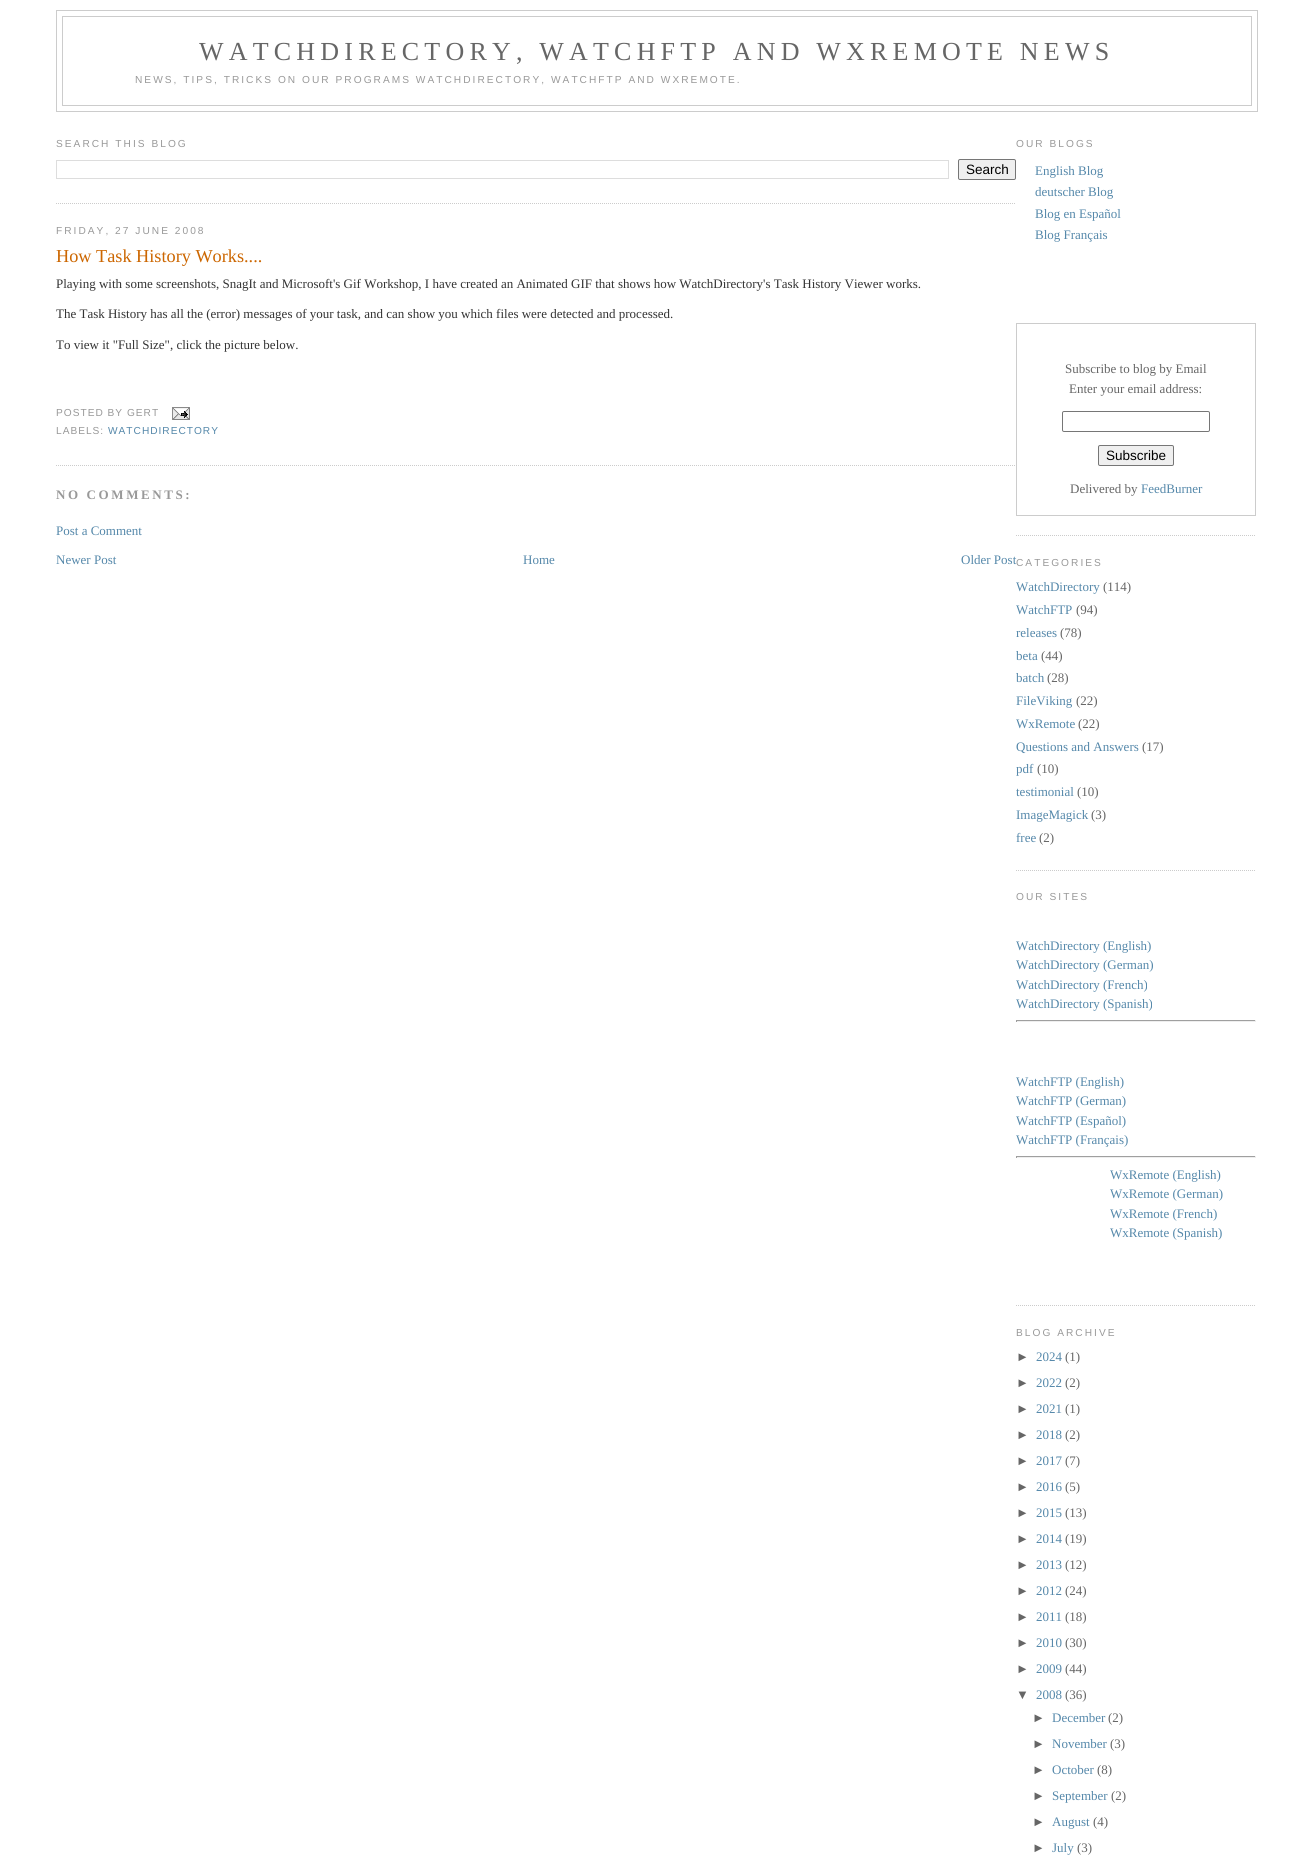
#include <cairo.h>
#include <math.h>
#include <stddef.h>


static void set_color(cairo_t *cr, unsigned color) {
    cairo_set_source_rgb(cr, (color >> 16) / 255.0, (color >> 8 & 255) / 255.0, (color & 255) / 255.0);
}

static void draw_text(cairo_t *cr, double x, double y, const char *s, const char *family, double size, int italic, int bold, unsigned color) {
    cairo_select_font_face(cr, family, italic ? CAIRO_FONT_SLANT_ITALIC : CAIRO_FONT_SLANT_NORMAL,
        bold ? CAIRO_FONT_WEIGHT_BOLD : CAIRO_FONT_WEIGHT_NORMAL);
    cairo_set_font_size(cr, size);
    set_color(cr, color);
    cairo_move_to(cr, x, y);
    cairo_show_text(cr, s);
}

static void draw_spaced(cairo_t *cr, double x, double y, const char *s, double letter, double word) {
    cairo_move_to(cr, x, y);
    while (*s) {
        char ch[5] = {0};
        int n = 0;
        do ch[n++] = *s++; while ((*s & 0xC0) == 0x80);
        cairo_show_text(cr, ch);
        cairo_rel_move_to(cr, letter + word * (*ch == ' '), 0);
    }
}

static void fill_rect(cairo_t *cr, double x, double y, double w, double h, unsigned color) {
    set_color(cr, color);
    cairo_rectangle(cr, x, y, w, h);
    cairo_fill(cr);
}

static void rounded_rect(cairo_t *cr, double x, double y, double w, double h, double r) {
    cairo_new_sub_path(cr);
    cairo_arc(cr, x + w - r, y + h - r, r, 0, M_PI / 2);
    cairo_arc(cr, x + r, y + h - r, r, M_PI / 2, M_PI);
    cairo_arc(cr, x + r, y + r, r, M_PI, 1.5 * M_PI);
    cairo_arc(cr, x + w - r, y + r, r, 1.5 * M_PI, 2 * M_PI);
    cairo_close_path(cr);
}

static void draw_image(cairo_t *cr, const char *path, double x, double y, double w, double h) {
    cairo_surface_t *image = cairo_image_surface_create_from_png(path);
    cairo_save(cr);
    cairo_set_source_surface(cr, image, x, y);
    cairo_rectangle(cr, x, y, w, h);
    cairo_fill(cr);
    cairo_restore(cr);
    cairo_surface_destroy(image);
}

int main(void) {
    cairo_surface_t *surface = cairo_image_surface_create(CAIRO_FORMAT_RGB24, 1312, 1862);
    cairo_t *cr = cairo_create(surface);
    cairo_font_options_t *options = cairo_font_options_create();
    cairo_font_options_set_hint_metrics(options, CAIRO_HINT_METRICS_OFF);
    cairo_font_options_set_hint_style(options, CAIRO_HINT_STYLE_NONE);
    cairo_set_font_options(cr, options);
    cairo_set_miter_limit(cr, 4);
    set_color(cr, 0xFFFFFF);
    cairo_paint(cr);
    cairo_rectangle(cr, 56.5, 10.5, 1201, 101);
    set_color(cr, 0xCCCCCC);
    cairo_set_line_width(cr, 1);
    cairo_stroke(cr);
    cairo_rectangle(cr, 62.5, 16.5, 1189, 89);
    cairo_stroke(cr);
    cairo_select_font_face(cr, "Liberation Serif", CAIRO_FONT_SLANT_NORMAL, CAIRO_FONT_WEIGHT_NORMAL);
    cairo_set_font_size(cr, 26);
    set_color(cr, 0x666666);
    draw_spaced(cr, 199, 60, "WATCHDIRECTORY, WATCHFTP AND WXREMOTE NEWS", 5.2, 0);
    cairo_select_font_face(cr, "Liberation Sans", CAIRO_FONT_SLANT_NORMAL, CAIRO_FONT_WEIGHT_NORMAL);
    cairo_set_font_size(cr, 10.15);
    set_color(cr, 0x999999);
    draw_spaced(cr, 135, 83, "NEWS, TIPS, TRICKS ON OUR PROGRAMS WATCHDIRECTORY, WATCHFTP AND WXREMOTE.", 2.03, 0);
    cairo_new_path(cr);
    cairo_move_to(cr, 56, 203.5);
    cairo_line_to(cr, 1016, 203.5);
    set_color(cr, 0xCCCCCC);
    cairo_set_dash(cr, (double[]){1, 1}, 2, 0);
    cairo_stroke(cr);
    set_color(cr, 0x999999);
    draw_spaced(cr, 56, 147, "SEARCH THIS BLOG", 2.03, 0);
    cairo_rectangle(cr, 56.5, 160.5, 892, 18);
    set_color(cr, 0xDDDDDD);
    cairo_set_dash(cr, NULL, 0, 0);
    cairo_stroke(cr);
    set_color(cr, 0xEFEFEF);
    rounded_rect(cr, 958.5, 159.5, 57, 20, 1.5);
    cairo_fill_preserve(cr);
    set_color(cr, 0x767676);
    cairo_stroke(cr);
    draw_text(cr, 966, 174, "Search", "Liberation Sans", 13.5, 0, 0, 0x000000);
    cairo_set_font_size(cr, 10.15);
    set_color(cr, 0x999999);
    draw_spaced(cr, 56, 234, "FRIDAY, 27 JUNE 2008", 2.03, 0);
    cairo_new_path(cr);
    cairo_move_to(cr, 56, 465.5);
    cairo_line_to(cr, 1016, 465.5);
    set_color(cr, 0xCCCCCC);
    cairo_set_dash(cr, (double[]){1, 1}, 2, 0);
    cairo_stroke(cr);
    draw_text(cr, 56, 262, "How Task History Works....", "Liberation Serif", 18.25, 0, 0, 0xCC6600);
    draw_text(cr, 56, 288, "Playing with some screenshots, SnagIt and Microsoft's Gif Workshop, I have created an Animated GIF that shows how WatchDirectory's Task History Viewer works.", "Liberation Serif", 13, 0, 0, 0x333333);
    draw_text(cr, 56, 318, "The Task History has all the (error) messages of your task, and can show you which files were detected and processed.", "Liberation Serif", 13, 0, 0, 0x333333);
    draw_text(cr, 56, 349, "To view it \"Full Size\", click the picture below.", "Liberation Serif", 13, 0, 0, 0x333333);
    cairo_select_font_face(cr, "Liberation Sans", CAIRO_FONT_SLANT_NORMAL, CAIRO_FONT_WEIGHT_NORMAL);
    cairo_set_font_size(cr, 10.15);
    set_color(cr, 0x999999);
    draw_spaced(cr, 56, 416, "POSTED BY GERT", 1, 0);
    draw_image(cr, "assets/img1.png", 172, 407, 18, 13);
    draw_spaced(cr, 56, 434, "LABELS:", 1, 0);
    set_color(cr, 0x5588AA);
    draw_spaced(cr, 108, 434, "WATCHDIRECTORY", 1, 0);
    cairo_select_font_face(cr, "Liberation Serif", CAIRO_FONT_SLANT_NORMAL, CAIRO_FONT_WEIGHT_BOLD);
    cairo_set_font_size(cr, 13);
    set_color(cr, 0x999999);
    draw_spaced(cr, 56, 499, "NO COMMENTS:", 2.6, 0);
    draw_text(cr, 56, 535, "Post a Comment", "Liberation Serif", 13, 0, 0, 0x5588AA);
    draw_text(cr, 56, 564, "Newer Post", "Liberation Serif", 13, 0, 0, 0x5588AA);
    draw_text(cr, 523, 564, "Home", "Liberation Serif", 13, 0, 0, 0x5588AA);
    draw_text(cr, 961, 564, "Older Post", "Liberation Serif", 13, 0, 0, 0x5588AA);
    cairo_new_path(cr);
    cairo_move_to(cr, 1016, 535.5);
    cairo_line_to(cr, 1256, 535.5);
    set_color(cr, 0xCCCCCC);
    cairo_stroke(cr);
    cairo_select_font_face(cr, "Liberation Sans", CAIRO_FONT_SLANT_NORMAL, CAIRO_FONT_WEIGHT_NORMAL);
    cairo_set_font_size(cr, 10.15);
    set_color(cr, 0x999999);
    draw_spaced(cr, 1016, 147, "OUR BLOGS", 2.03, 0);
    draw_text(cr, 1035, 175, "English Blog", "Liberation Serif", 13, 0, 0, 0x5588AA);
    draw_text(cr, 1035, 196, "deutscher Blog", "Liberation Serif", 13, 0, 0, 0x5588AA);
    draw_text(cr, 1035, 218, "Blog en Español", "Liberation Serif", 13, 0, 0, 0x5588AA);
    draw_text(cr, 1035, 239, "Blog Français", "Liberation Serif", 13, 0, 0, 0x5588AA);
    cairo_rectangle(cr, 1016.5, 323.5, 239, 192);
    set_color(cr, 0xCCCCCC);
    cairo_set_dash(cr, NULL, 0, 0);
    cairo_stroke(cr);
    draw_text(cr, 1065, 373, "Subscribe to blog by Email", "Liberation Serif", 13, 0, 0, 0x666666);
    draw_text(cr, 1069, 393, "Enter your email address:", "Liberation Serif", 13, 0, 0, 0x666666);
    rounded_rect(cr, 1062.5, 411.5, 147, 20, 1.5);
    set_color(cr, 0x767676);
    cairo_stroke(cr);
    set_color(cr, 0xEFEFEF);
    rounded_rect(cr, 1098.5, 445.5, 75, 20, 1.5);
    cairo_fill_preserve(cr);
    set_color(cr, 0x767676);
    cairo_stroke(cr);
    draw_text(cr, 1106, 460, "Subscribe", "Liberation Sans", 13.5, 0, 0, 0x000000);
    draw_text(cr, 1070, 493, "Delivered by", "Liberation Serif", 13, 0, 0, 0x666666);
    draw_text(cr, 1141, 493, "FeedBurner", "Liberation Serif", 13, 0, 0, 0x5588AA);
    cairo_new_path(cr);
    cairo_move_to(cr, 1016, 870.5);
    cairo_line_to(cr, 1256, 870.5);
    set_color(cr, 0xCCCCCC);
    cairo_set_dash(cr, (double[]){1, 1}, 2, 0);
    cairo_stroke(cr);
    cairo_select_font_face(cr, "Liberation Sans", CAIRO_FONT_SLANT_NORMAL, CAIRO_FONT_WEIGHT_NORMAL);
    cairo_set_font_size(cr, 10.15);
    set_color(cr, 0x999999);
    draw_spaced(cr, 1016, 566, "CATEGORIES", 2.03, 0);
    draw_text(cr, 1016, 591, "WatchDirectory", "Liberation Serif", 13, 0, 0, 0x5588AA);
    draw_text(cr, 1103, 591, "(114)", "Liberation Serif", 13, 0, 0, 0x666666);
    draw_text(cr, 1016, 614, "WatchFTP", "Liberation Serif", 13, 0, 0, 0x5588AA);
    draw_text(cr, 1076, 614, "(94)", "Liberation Serif", 13, 0, 0, 0x666666);
    draw_text(cr, 1016, 637, "releases", "Liberation Serif", 13, 0, 0, 0x5588AA);
    draw_text(cr, 1060, 637, "(78)", "Liberation Serif", 13, 0, 0, 0x666666);
    draw_text(cr, 1016, 660, "beta", "Liberation Serif", 13, 0, 0, 0x5588AA);
    draw_text(cr, 1041, 660, "(44)", "Liberation Serif", 13, 0, 0, 0x666666);
    draw_text(cr, 1016, 682, "batch", "Liberation Serif", 13, 0, 0, 0x5588AA);
    draw_text(cr, 1047, 682, "(28)", "Liberation Serif", 13, 0, 0, 0x666666);
    draw_text(cr, 1016, 705, "FileViking", "Liberation Serif", 13, 0, 0, 0x5588AA);
    draw_text(cr, 1076, 705, "(22)", "Liberation Serif", 13, 0, 0, 0x666666);
    draw_text(cr, 1016, 728, "WxRemote", "Liberation Serif", 13, 0, 0, 0x5588AA);
    draw_text(cr, 1078, 728, "(22)", "Liberation Serif", 13, 0, 0, 0x666666);
    draw_text(cr, 1016, 751, "Questions and Answers", "Liberation Serif", 13, 0, 0, 0x5588AA);
    draw_text(cr, 1142, 751, "(17)", "Liberation Serif", 13, 0, 0, 0x666666);
    draw_text(cr, 1016, 773, "pdf", "Liberation Serif", 13, 0, 0, 0x5588AA);
    draw_text(cr, 1037, 773, "(10)", "Liberation Serif", 13, 0, 0, 0x666666);
    draw_text(cr, 1016, 796, "testimonial", "Liberation Serif", 13, 0, 0, 0x5588AA);
    draw_text(cr, 1077, 796, "(10)", "Liberation Serif", 13, 0, 0, 0x666666);
    draw_text(cr, 1016, 819, "ImageMagick", "Liberation Serif", 13, 0, 0, 0x5588AA);
    draw_text(cr, 1091, 819, "(3)", "Liberation Serif", 13, 0, 0, 0x666666);
    draw_text(cr, 1016, 842, "free", "Liberation Serif", 13, 0, 0, 0x5588AA);
    draw_text(cr, 1039, 842, "(2)", "Liberation Serif", 13, 0, 0, 0x666666);
    cairo_new_path(cr);
    cairo_move_to(cr, 1016, 1305.5);
    cairo_line_to(cr, 1256, 1305.5);
    set_color(cr, 0xCCCCCC);
    cairo_stroke(cr);
    cairo_select_font_face(cr, "Liberation Sans", CAIRO_FONT_SLANT_NORMAL, CAIRO_FONT_WEIGHT_NORMAL);
    cairo_set_font_size(cr, 10.15);
    set_color(cr, 0x999999);
    draw_spaced(cr, 1016, 900, "OUR SITES", 2.03, 0);
    draw_text(cr, 1016, 950, "WatchDirectory (English)", "Liberation Serif", 13, 0, 0, 0x5588AA);
    draw_text(cr, 1016, 969, "WatchDirectory (German)", "Liberation Serif", 13, 0, 0, 0x5588AA);
    draw_text(cr, 1016, 989, "WatchDirectory (French)", "Liberation Serif", 13, 0, 0, 0x5588AA);
    draw_text(cr, 1016, 1008, "WatchDirectory (Spanish)", "Liberation Serif", 13, 0, 0, 0x5588AA);
    fill_rect(cr, 1016, 1020, 240, 1, 0x9F9F9F);
    fill_rect(cr, 1255, 1020, 1, 2, 0xEEEEEE);
    fill_rect(cr, 1016, 1021, 240, 1, 0xEEEEEE);
    fill_rect(cr, 1016, 1020, 1, 2, 0x9F9F9F);
    draw_text(cr, 1016, 1086, "WatchFTP (English)", "Liberation Serif", 13, 0, 0, 0x5588AA);
    draw_text(cr, 1016, 1105, "WatchFTP (German)", "Liberation Serif", 13, 0, 0, 0x5588AA);
    draw_text(cr, 1016, 1125, "WatchFTP (Español)", "Liberation Serif", 13, 0, 0, 0x5588AA);
    draw_text(cr, 1016, 1144, "WatchFTP (Français)", "Liberation Serif", 13, 0, 0, 0x5588AA);
    fill_rect(cr, 1016, 1156, 240, 1, 0x9F9F9F);
    fill_rect(cr, 1255, 1156, 1, 2, 0xEEEEEE);
    fill_rect(cr, 1016, 1157, 240, 1, 0xEEEEEE);
    fill_rect(cr, 1016, 1156, 1, 2, 0x9F9F9F);
    draw_text(cr, 1110, 1179, "WxRemote (English)", "Liberation Serif", 13, 0, 0, 0x5588AA);
    draw_text(cr, 1110, 1198, "WxRemote (German)", "Liberation Serif", 13, 0, 0, 0x5588AA);
    draw_text(cr, 1110, 1218, "WxRemote (French)", "Liberation Serif", 13, 0, 0, 0x5588AA);
    draw_text(cr, 1110, 1237, "WxRemote (Spanish)", "Liberation Serif", 13, 0, 0, 0x5588AA);
    cairo_select_font_face(cr, "Liberation Sans", CAIRO_FONT_SLANT_NORMAL, CAIRO_FONT_WEIGHT_NORMAL);
    cairo_set_font_size(cr, 10.15);
    set_color(cr, 0x999999);
    draw_spaced(cr, 1016, 1336, "BLOG ARCHIVE", 2.03, 0);
    draw_text(cr, 1016, 1361, "►", "Liberation Sans", 13, 0, 0, 0x666666);
    draw_text(cr, 1036, 1361, "2024", "Liberation Serif", 13, 0, 0, 0x5588AA);
    draw_text(cr, 1065, 1361, "(1)", "Liberation Serif", 13, 0, 0, 0x666666);
    draw_text(cr, 1016, 1387, "►", "Liberation Sans", 13, 0, 0, 0x666666);
    draw_text(cr, 1036, 1387, "2022", "Liberation Serif", 13, 0, 0, 0x5588AA);
    draw_text(cr, 1065, 1387, "(2)", "Liberation Serif", 13, 0, 0, 0x666666);
    draw_text(cr, 1016, 1413, "►", "Liberation Sans", 13, 0, 0, 0x666666);
    draw_text(cr, 1036, 1413, "2021", "Liberation Serif", 13, 0, 0, 0x5588AA);
    draw_text(cr, 1065, 1413, "(1)", "Liberation Serif", 13, 0, 0, 0x666666);
    draw_text(cr, 1016, 1439, "►", "Liberation Sans", 13, 0, 0, 0x666666);
    draw_text(cr, 1036, 1439, "2018", "Liberation Serif", 13, 0, 0, 0x5588AA);
    draw_text(cr, 1065, 1439, "(2)", "Liberation Serif", 13, 0, 0, 0x666666);
    draw_text(cr, 1016, 1465, "►", "Liberation Sans", 13, 0, 0, 0x666666);
    draw_text(cr, 1036, 1465, "2017", "Liberation Serif", 13, 0, 0, 0x5588AA);
    draw_text(cr, 1065, 1465, "(7)", "Liberation Serif", 13, 0, 0, 0x666666);
    draw_text(cr, 1016, 1491, "►", "Liberation Sans", 13, 0, 0, 0x666666);
    draw_text(cr, 1036, 1491, "2016", "Liberation Serif", 13, 0, 0, 0x5588AA);
    draw_text(cr, 1065, 1491, "(5)", "Liberation Serif", 13, 0, 0, 0x666666);
    draw_text(cr, 1016, 1517, "►", "Liberation Sans", 13, 0, 0, 0x666666);
    draw_text(cr, 1036, 1517, "2015", "Liberation Serif", 13, 0, 0, 0x5588AA);
    draw_text(cr, 1065, 1517, "(13)", "Liberation Serif", 13, 0, 0, 0x666666);
    draw_text(cr, 1016, 1543, "►", "Liberation Sans", 13, 0, 0, 0x666666);
    draw_text(cr, 1036, 1543, "2014", "Liberation Serif", 13, 0, 0, 0x5588AA);
    draw_text(cr, 1065, 1543, "(19)", "Liberation Serif", 13, 0, 0, 0x666666);
    draw_text(cr, 1016, 1569, "►", "Liberation Sans", 13, 0, 0, 0x666666);
    draw_text(cr, 1036, 1569, "2013", "Liberation Serif", 13, 0, 0, 0x5588AA);
    draw_text(cr, 1065, 1569, "(12)", "Liberation Serif", 13, 0, 0, 0x666666);
    draw_text(cr, 1016, 1595, "►", "Liberation Sans", 13, 0, 0, 0x666666);
    draw_text(cr, 1036, 1595, "2012", "Liberation Serif", 13, 0, 0, 0x5588AA);
    draw_text(cr, 1065, 1595, "(24)", "Liberation Serif", 13, 0, 0, 0x666666);
    draw_text(cr, 1016, 1621, "►", "Liberation Sans", 13, 0, 0, 0x666666);
    draw_text(cr, 1036, 1621, "2011", "Liberation Serif", 13, 0, 0, 0x5588AA);
    draw_text(cr, 1065, 1621, "(18)", "Liberation Serif", 13, 0, 0, 0x666666);
    draw_text(cr, 1016, 1647, "►", "Liberation Sans", 13, 0, 0, 0x666666);
    draw_text(cr, 1036, 1647, "2010", "Liberation Serif", 13, 0, 0, 0x5588AA);
    draw_text(cr, 1065, 1647, "(30)", "Liberation Serif", 13, 0, 0, 0x666666);
    draw_text(cr, 1016, 1673, "►", "Liberation Sans", 13, 0, 0, 0x666666);
    draw_text(cr, 1036, 1673, "2009", "Liberation Serif", 13, 0, 0, 0x5588AA);
    draw_text(cr, 1065, 1673, "(44)", "Liberation Serif", 13, 0, 0, 0x666666);
    draw_text(cr, 1016, 1699, "▼", "Liberation Sans", 13, 0, 0, 0x666666);
    draw_text(cr, 1036, 1699, "2008", "Liberation Serif", 13, 0, 0, 0x5588AA);
    draw_text(cr, 1065, 1699, "(36)", "Liberation Serif", 13, 0, 0, 0x666666);
    draw_text(cr, 1032, 1722, "►", "Liberation Sans", 13, 0, 0, 0x666666);
    draw_text(cr, 1052, 1722, "December", "Liberation Serif", 13, 0, 0, 0x5588AA);
    draw_text(cr, 1108, 1722, "(2)", "Liberation Serif", 13, 0, 0, 0x666666);
    draw_text(cr, 1032, 1748, "►", "Liberation Sans", 13, 0, 0, 0x666666);
    draw_text(cr, 1052, 1748, "November", "Liberation Serif", 13, 0, 0, 0x5588AA);
    draw_text(cr, 1110, 1748, "(3)", "Liberation Serif", 13, 0, 0, 0x666666);
    draw_text(cr, 1032, 1774, "►", "Liberation Sans", 13, 0, 0, 0x666666);
    draw_text(cr, 1052, 1774, "October", "Liberation Serif", 13, 0, 0, 0x5588AA);
    draw_text(cr, 1097, 1774, "(8)", "Liberation Serif", 13, 0, 0, 0x666666);
    draw_text(cr, 1032, 1800, "►", "Liberation Sans", 13, 0, 0, 0x666666);
    draw_text(cr, 1052, 1800, "September", "Liberation Serif", 13, 0, 0, 0x5588AA);
    draw_text(cr, 1111, 1800, "(2)", "Liberation Serif", 13, 0, 0, 0x666666);
    draw_text(cr, 1032, 1826, "►", "Liberation Sans", 13, 0, 0, 0x666666);
    draw_text(cr, 1052, 1826, "August", "Liberation Serif", 13, 0, 0, 0x5588AA);
    draw_text(cr, 1093, 1826, "(4)", "Liberation Serif", 13, 0, 0, 0x666666);
    draw_text(cr, 1032, 1852, "►", "Liberation Sans", 13, 0, 0, 0x666666);
    draw_text(cr, 1052, 1852, "July", "Liberation Serif", 13, 0, 0, 0x5588AA);
    draw_text(cr, 1077, 1852, "(3)", "Liberation Serif", 13, 0, 0, 0x666666);
    cairo_surface_write_to_png(surface, "output.png");
    cairo_font_options_destroy(options);
    cairo_destroy(cr);
    cairo_surface_destroy(surface);
    return 0;
}
